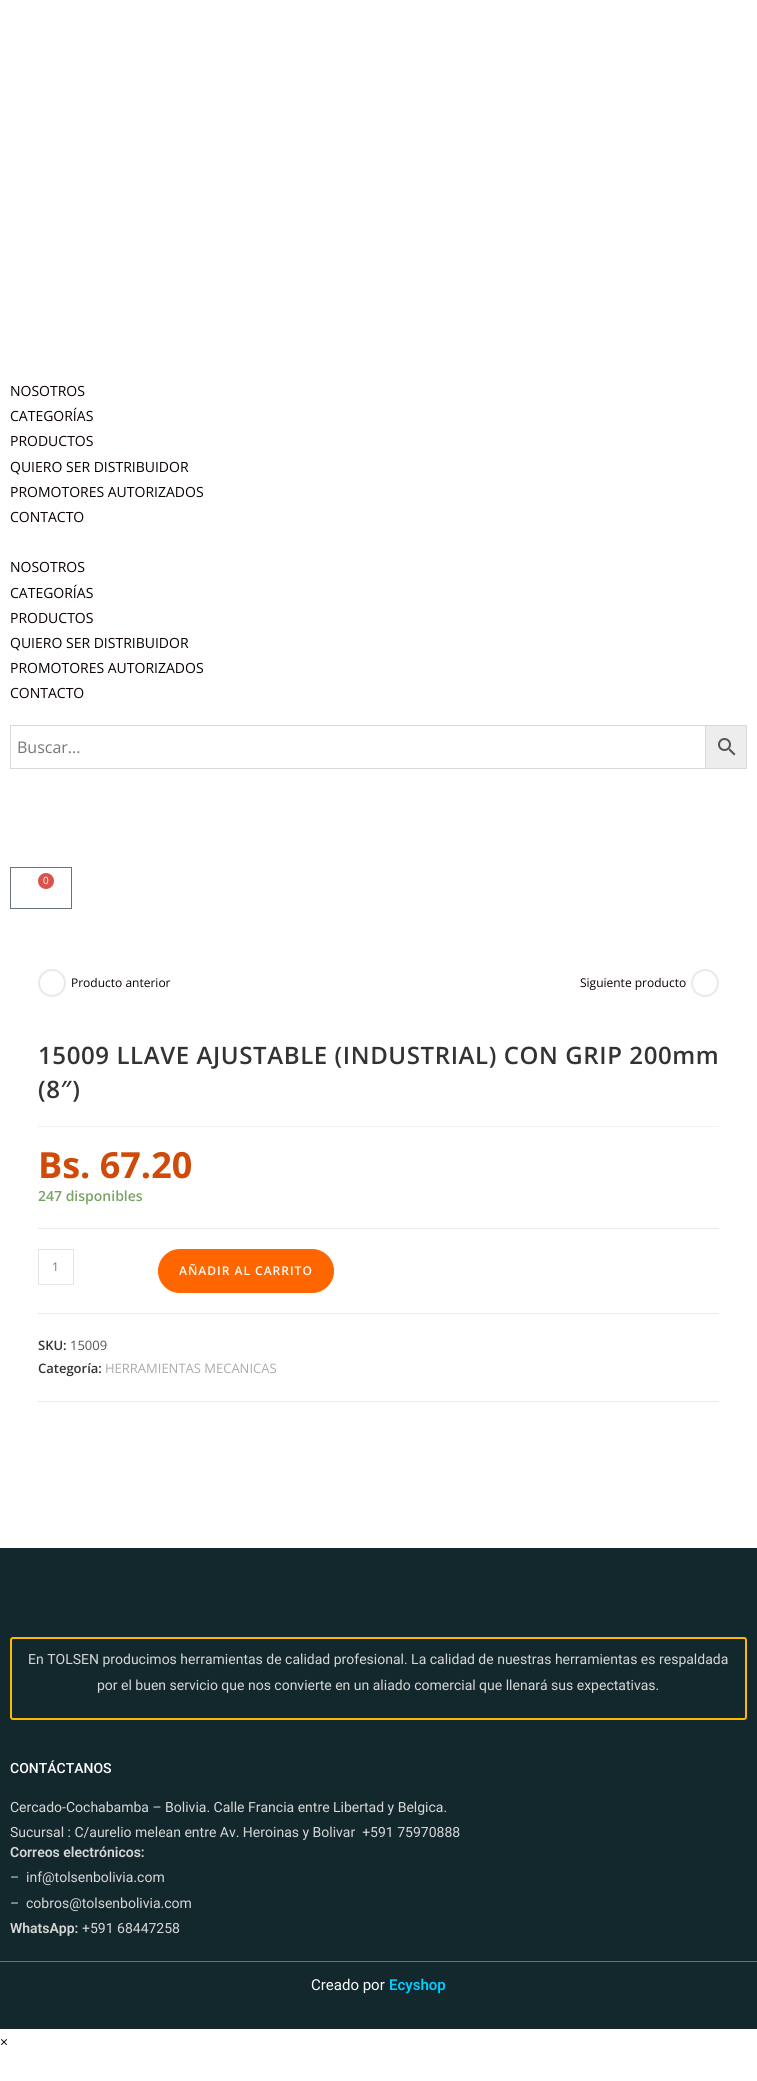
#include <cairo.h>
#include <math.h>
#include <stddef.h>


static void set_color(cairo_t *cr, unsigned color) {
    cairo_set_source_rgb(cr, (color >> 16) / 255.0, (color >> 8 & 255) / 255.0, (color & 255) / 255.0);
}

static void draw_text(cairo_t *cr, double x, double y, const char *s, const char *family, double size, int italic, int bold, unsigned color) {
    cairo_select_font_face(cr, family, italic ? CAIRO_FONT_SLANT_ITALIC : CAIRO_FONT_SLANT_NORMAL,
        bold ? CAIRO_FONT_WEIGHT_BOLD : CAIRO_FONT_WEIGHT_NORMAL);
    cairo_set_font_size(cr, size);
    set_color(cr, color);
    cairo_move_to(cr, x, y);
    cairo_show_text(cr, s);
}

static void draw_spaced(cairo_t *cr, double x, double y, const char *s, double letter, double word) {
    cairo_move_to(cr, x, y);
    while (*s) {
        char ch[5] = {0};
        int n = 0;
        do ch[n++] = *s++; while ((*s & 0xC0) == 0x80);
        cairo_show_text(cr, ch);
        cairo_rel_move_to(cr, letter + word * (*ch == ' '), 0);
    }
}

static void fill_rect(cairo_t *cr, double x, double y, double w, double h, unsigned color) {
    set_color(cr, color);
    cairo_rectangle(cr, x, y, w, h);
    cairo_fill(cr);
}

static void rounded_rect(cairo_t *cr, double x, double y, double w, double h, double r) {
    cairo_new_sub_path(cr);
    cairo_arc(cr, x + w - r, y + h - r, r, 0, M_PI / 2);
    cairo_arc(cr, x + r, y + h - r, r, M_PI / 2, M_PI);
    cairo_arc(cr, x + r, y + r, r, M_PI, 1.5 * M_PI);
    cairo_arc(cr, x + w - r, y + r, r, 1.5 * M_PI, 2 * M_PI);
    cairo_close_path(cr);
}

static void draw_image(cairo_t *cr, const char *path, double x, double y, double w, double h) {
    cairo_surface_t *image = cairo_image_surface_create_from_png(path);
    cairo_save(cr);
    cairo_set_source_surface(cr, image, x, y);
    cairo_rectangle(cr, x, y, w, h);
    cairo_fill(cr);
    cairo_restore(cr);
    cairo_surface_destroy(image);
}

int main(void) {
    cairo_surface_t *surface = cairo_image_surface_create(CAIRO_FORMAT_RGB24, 757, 2081);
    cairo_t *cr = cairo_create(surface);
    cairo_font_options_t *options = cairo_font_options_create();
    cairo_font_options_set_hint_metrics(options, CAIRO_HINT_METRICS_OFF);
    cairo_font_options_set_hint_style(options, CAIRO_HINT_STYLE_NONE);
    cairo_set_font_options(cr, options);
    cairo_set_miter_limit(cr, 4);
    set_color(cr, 0xFFFFFF);
    cairo_paint(cr);
    draw_text(cr, 10, 396, "NOSOTROS", "Open Sans", 14, 0, 0, 0x0A0000);
    draw_text(cr, 10, 421, "CATEGORÍAS", "Open Sans", 14, 0, 0, 0x0A0000);
    draw_text(cr, 10, 446, "PRODUCTOS", "Open Sans", 14, 0, 0, 0x0A0000);
    draw_text(cr, 10, 472, "QUIERO SER DISTRIBUIDOR", "Open Sans", 14, 0, 0, 0x0A0000);
    draw_text(cr, 10, 497, "PROMOTORES AUTORIZADOS", "Open Sans", 14, 0, 0, 0x0A0000);
    draw_text(cr, 10, 522, "CONTACTO", "Open Sans", 14, 0, 0, 0x0A0000);
    draw_text(cr, 10, 572, "NOSOTROS", "Open Sans", 14, 0, 0, 0x0A0000);
    draw_text(cr, 10, 598, "CATEGORÍAS", "Open Sans", 14, 0, 0, 0x0A0000);
    draw_text(cr, 10, 623, "PRODUCTOS", "Open Sans", 14, 0, 0, 0x0A0000);
    draw_text(cr, 10, 648, "QUIERO SER DISTRIBUIDOR", "Open Sans", 14, 0, 0, 0x0A0000);
    draw_text(cr, 10, 673, "PROMOTORES AUTORIZADOS", "Open Sans", 14, 0, 0, 0x0A0000);
    draw_text(cr, 10, 698, "CONTACTO", "Open Sans", 14, 0, 0, 0x0A0000);
    set_color(cr, 0xEDEDED);
    cairo_rectangle(cr, 705.5, 725.5, 41, 43);
    cairo_fill_preserve(cr);
    set_color(cr, 0xD8D8D8);
    cairo_set_line_width(cr, 1);
    cairo_stroke(cr);
    cairo_rectangle(cr, 10.5, 725.5, 695, 43);
    cairo_stroke(cr);
    draw_text(cr, 17, 753, "Buscar...", "Open Sans", 16, 0, 0, 0x777777);
    draw_image(cr, "assets/img1.png", 718, 738, 18, 18);
    cairo_rectangle(cr, 10.5, 867.5, 61, 41);
    set_color(cr, 0x69727D);
    cairo_stroke(cr);
    set_color(cr, 0xD9534F);
    cairo_arc(cr, 46, 881, 8, 0, 2 * M_PI);
    cairo_fill(cr);
    draw_text(cr, 43, 884, "0", "Open Sans", 10, 0, 0, 0xFFFFFF);
    cairo_new_path(cr);
    cairo_arc(cr, 52, 983, 13, 0, 2 * M_PI);
    set_color(cr, 0xE9E9E9);
    cairo_set_line_width(cr, 2);
    cairo_stroke(cr);
    draw_text(cr, 71, 987, "Producto anterior", "Open Sans", 12, 0, 0, 0x0A0000);
    draw_text(cr, 580, 987, "Siguiente producto", "Open Sans", 12, 0, 0, 0x0A0000);
    cairo_new_path(cr);
    cairo_arc(cr, 705, 983, 13, 0, 2 * M_PI);
    set_color(cr, 0xE9E9E9);
    cairo_stroke(cr);
    fill_rect(cr, 38, 1126, 681, 1, 0xF1F1F1);
    cairo_select_font_face(cr, "Open Sans SemiBold", CAIRO_FONT_SLANT_NORMAL, CAIRO_FONT_WEIGHT_NORMAL);
    cairo_set_font_size(cr, 24);
    set_color(cr, 0x333333);
    draw_spaced(cr, 38, 1064, "15009 LLAVE AJUSTABLE (INDUSTRIAL) CON GRIP 200mm", 0.6, 0);
    draw_spaced(cr, 38, 1098, "(8″)", 0.6, 0);
    draw_text(cr, 38, 1178, "Bs. 67.20", "Open Sans", 36, 0, 1, 0xD04A0A);
    draw_text(cr, 38, 1201, "247 disponibles", "Open Sans SemiBold", 14, 0, 0, 0x77A464);
    fill_rect(cr, 38, 1228, 681, 1, 0xEAEAEA);
    fill_rect(cr, 38, 1313, 681, 1, 0xEAEAEA);
    cairo_rectangle(cr, 38.5, 1249.5, 35, 35);
    set_color(cr, 0xE4E4E4);
    cairo_set_line_width(cr, 1);
    cairo_stroke(cr);
    draw_text(cr, 52, 1271, "1", "Open Sans", 12, 0, 0, 0x777777);
    set_color(cr, 0xFF6600);
    rounded_rect(cr, 158.5, 1249.5, 175, 43, 21.5);
    cairo_fill_preserve(cr);
    cairo_stroke(cr);
    cairo_select_font_face(cr, "Open Sans SemiBold", CAIRO_FONT_SLANT_NORMAL, CAIRO_FONT_WEIGHT_NORMAL);
    set_color(cr, 0xFFFFFF);
    draw_spaced(cr, 179, 1275, "AÑADIR AL CARRITO", 1, 0);
    fill_rect(cr, 38, 1401, 681, 1, 0xEAEAEA);
    draw_text(cr, 38, 1350, "SKU:", "Open Sans SemiBold", 13, 0, 0, 0x333333);
    draw_text(cr, 70, 1350, "15009", "Open Sans", 13, 0, 0, 0x555555);
    draw_text(cr, 38, 1373, "Categoría:", "Open Sans SemiBold", 13, 0, 0, 0x333333);
    draw_text(cr, 105, 1373, "HERRAMIENTAS MECANICAS", "Open Sans", 13, 0, 0, 0xABABAB);
    fill_rect(cr, 0, 1548, 757, 413, 0x13282D);
    rounded_rect(cr, 11, 1638, 735, 81, 2);
    set_color(cr, 0xFFBA00);
    cairo_set_line_width(cr, 2);
    cairo_stroke(cr);
    draw_text(cr, 28, 1664, "En TOLSEN producimos herramientas de calidad profesional. La calidad de nuestras herramientas es respaldada", "Roboto", 14, 0, 0, 0xD7D7D7);
    draw_text(cr, 97, 1690, "por el buen servicio que nos convierte en un aliado comercial que llenará sus expectativas.", "Roboto", 14, 0, 0, 0xD7D7D7);
    draw_text(cr, 10, 1773, "CONTÁCTANOS", "Roboto Medium", 14, 0, 0, 0xFFFFFF);
    draw_text(cr, 10, 1812, "Cercado-Cochabamba – Bolivia. Calle Francia entre Libertad y Belgica.", "Roboto", 14, 0, 0, 0xD7D7D7);
    draw_text(cr, 10, 1837, "Sucursal : C/aurelio melean entre Av. Heroinas y Bolivar  +591 75970888", "Roboto", 14, 0, 0, 0xD7D7D7);
    draw_text(cr, 10, 1857, "Correos electrónicos:", "Roboto SemiBold", 14, 0, 0, 0xD7D7D7);
    draw_text(cr, 10, 1882, "–", "Roboto", 14, 0, 0, 0xD7D7D7);
    draw_text(cr, 26, 1882, "inf@tolsenbolivia.com", "Roboto", 14, 0, 0, 0xD7D7D7);
    draw_text(cr, 10, 1908, "–", "Roboto", 14, 0, 0, 0xD7D7D7);
    draw_text(cr, 26, 1908, "cobros@tolsenbolivia.com", "Roboto", 14, 0, 0, 0xD7D7D7);
    draw_text(cr, 10, 1933, "WhatsApp:", "Roboto SemiBold", 14, 0, 0, 0xD7D7D7);
    draw_text(cr, 82, 1933, "+591 68447258", "Roboto", 14, 0, 0, 0xD7D7D7);
    fill_rect(cr, 0, 1962, 757, 67, 0x13282D);
    fill_rect(cr, 0, 1961, 757, 1, 0x647376);
    draw_text(cr, 311, 1990, "Creado por", "Roboto", 15, 0, 0, 0xFFFFFF);
    draw_text(cr, 389, 1990, "Ecyshop", "Roboto SemiBold", 15, 0, 0, 0x00CCFF);
    draw_text(cr, 0, 2047, "×", "Open Sans", 14, 0, 0, 0x0A0000);
    cairo_surface_write_to_png(surface, "output.png");
    cairo_font_options_destroy(options);
    cairo_destroy(cr);
    cairo_surface_destroy(surface);
    return 0;
}
